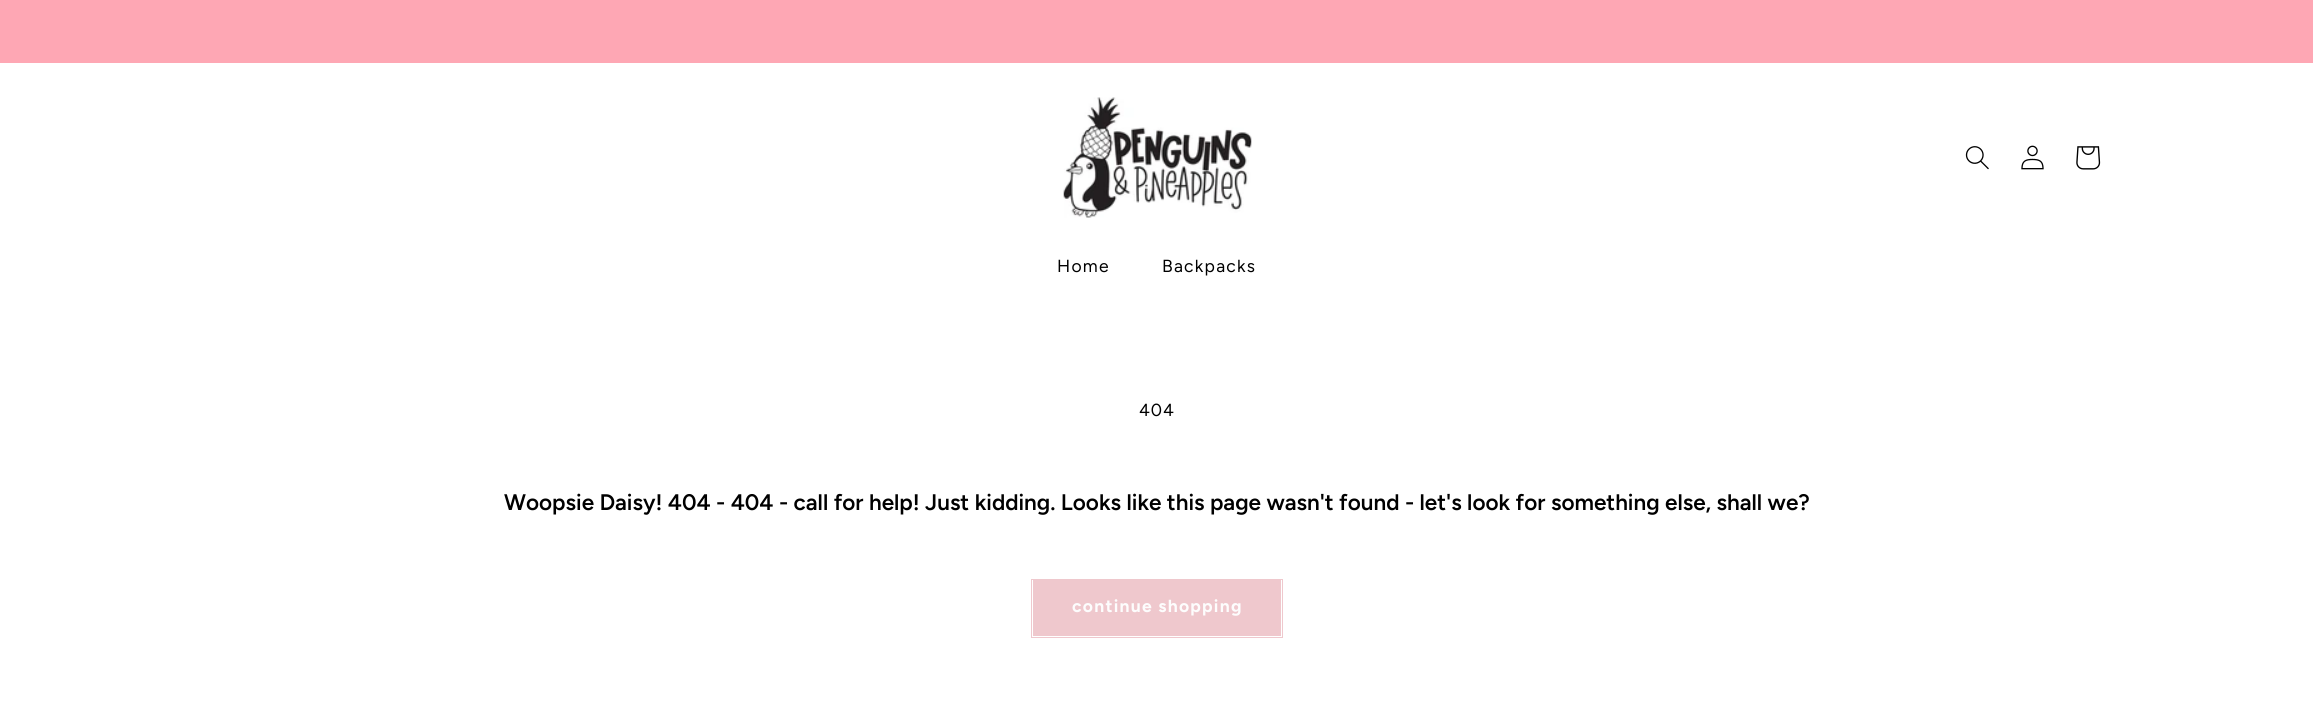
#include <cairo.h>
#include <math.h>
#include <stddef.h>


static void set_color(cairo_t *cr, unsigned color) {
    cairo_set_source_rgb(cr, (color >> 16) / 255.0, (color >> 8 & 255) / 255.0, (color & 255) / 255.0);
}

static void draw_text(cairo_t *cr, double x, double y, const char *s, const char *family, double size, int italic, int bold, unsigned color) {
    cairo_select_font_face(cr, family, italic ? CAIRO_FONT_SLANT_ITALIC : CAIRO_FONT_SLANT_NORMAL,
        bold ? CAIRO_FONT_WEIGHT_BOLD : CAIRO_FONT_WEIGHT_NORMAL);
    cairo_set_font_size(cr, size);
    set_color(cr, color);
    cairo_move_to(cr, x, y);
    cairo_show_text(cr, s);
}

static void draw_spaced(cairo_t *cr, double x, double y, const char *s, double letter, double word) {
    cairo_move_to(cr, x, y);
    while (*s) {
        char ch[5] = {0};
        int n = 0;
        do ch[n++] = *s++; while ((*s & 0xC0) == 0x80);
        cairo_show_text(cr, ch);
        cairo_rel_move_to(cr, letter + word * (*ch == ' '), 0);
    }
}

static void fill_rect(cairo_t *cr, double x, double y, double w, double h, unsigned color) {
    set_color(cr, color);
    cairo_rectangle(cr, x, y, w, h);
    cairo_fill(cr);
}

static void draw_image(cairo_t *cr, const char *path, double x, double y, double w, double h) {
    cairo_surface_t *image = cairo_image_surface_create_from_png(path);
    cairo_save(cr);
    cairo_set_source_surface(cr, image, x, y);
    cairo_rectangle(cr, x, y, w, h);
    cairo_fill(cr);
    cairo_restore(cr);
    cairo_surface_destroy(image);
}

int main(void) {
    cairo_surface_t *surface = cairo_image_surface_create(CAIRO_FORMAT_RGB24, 2313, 723);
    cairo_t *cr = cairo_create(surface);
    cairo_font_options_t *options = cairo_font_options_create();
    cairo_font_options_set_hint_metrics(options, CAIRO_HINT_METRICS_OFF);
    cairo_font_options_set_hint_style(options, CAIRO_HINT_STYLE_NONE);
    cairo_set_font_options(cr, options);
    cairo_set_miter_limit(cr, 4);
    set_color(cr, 0xFFFFFF);
    cairo_paint(cr);
    fill_rect(cr, 0, 0, 2313, 63, 0xFEA7B4);
    draw_image(cr, "assets/img1.png", 1063, 97, 189, 121);
    draw_image(cr, "assets/img2.png", 1965, 146, 24, 24);
    draw_image(cr, "assets/img3.png", 2021, 145, 23, 25);
    draw_image(cr, "assets/img4.png", 2076, 146, 25, 24);
    cairo_select_font_face(cr, "Figtree", CAIRO_FONT_SLANT_NORMAL, CAIRO_FONT_WEIGHT_NORMAL);
    cairo_set_font_size(cr, 17.5);
    set_color(cr, 0x000000);
    draw_spaced(cr, 1057, 272, "Home", 1.25, 0);
    draw_spaced(cr, 1162, 272, "Backpacks", 1.25, 0);
    draw_spaced(cr, 1139, 416, "404", 1, 0);
    draw_text(cr, 504, 510, "Woopsie Daisy! 404 - 404 - call for help! Just kidding. Looks like this page wasn't found - let's look for something else, shall we?", "Figtree SemiBold", 22.5, 0, 0, 0x000000);
    cairo_rectangle(cr, 1031.5, 579.5, 251, 58);
    set_color(cr, 0xEFC8CD);
    cairo_set_line_width(cr, 1);
    cairo_stroke(cr);
    fill_rect(cr, 1033, 580, 248, 56, 0xEFC8CD);
    cairo_select_font_face(cr, "Figtree", CAIRO_FONT_SLANT_NORMAL, CAIRO_FONT_WEIGHT_BOLD);
    cairo_set_font_size(cr, 17.5);
    set_color(cr, 0xFDFDFD);
    draw_spaced(cr, 1072, 612, "continue shopping", 1.25, 0);
    cairo_surface_write_to_png(surface, "output.png");
    cairo_font_options_destroy(options);
    cairo_destroy(cr);
    cairo_surface_destroy(surface);
    return 0;
}
